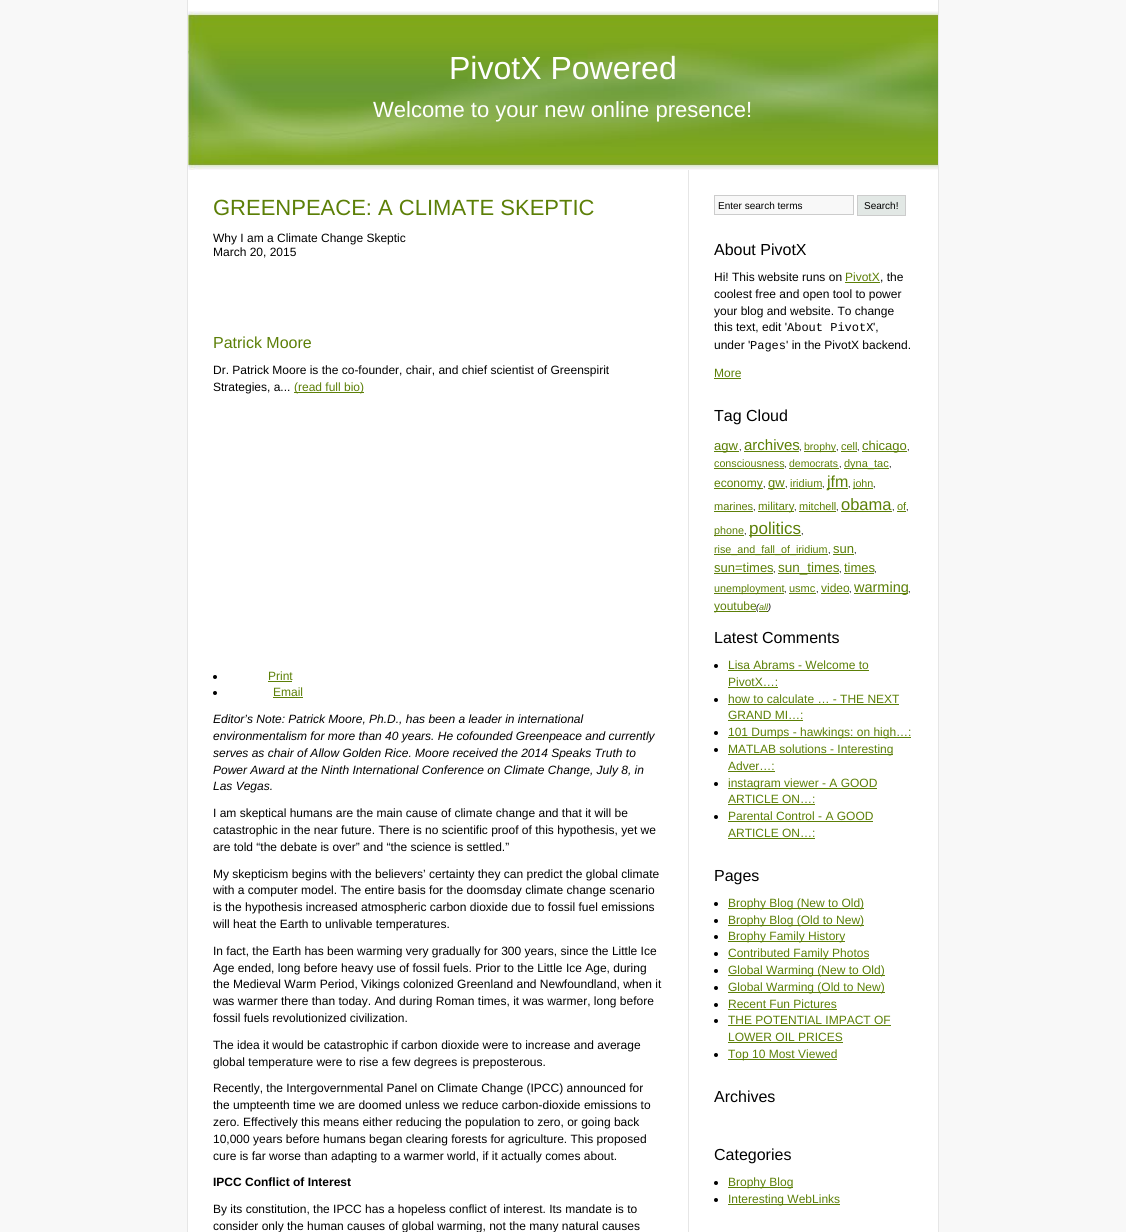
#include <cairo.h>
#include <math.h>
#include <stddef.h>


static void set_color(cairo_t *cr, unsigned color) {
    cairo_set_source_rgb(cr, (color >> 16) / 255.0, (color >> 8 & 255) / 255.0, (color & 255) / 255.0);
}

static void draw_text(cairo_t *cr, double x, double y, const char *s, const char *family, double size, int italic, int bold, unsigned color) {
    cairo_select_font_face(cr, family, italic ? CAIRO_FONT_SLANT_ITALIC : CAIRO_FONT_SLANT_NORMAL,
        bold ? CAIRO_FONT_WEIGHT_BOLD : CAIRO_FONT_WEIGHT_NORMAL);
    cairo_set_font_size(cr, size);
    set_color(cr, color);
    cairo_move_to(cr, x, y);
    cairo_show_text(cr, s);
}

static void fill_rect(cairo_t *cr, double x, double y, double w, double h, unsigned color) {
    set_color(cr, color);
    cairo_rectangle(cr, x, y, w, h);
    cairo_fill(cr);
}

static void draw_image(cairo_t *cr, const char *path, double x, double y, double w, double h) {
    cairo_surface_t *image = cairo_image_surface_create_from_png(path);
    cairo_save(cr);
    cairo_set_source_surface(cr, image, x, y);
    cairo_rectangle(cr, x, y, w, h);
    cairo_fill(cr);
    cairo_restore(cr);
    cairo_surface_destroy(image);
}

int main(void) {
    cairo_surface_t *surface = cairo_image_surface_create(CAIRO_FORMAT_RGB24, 1126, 1232);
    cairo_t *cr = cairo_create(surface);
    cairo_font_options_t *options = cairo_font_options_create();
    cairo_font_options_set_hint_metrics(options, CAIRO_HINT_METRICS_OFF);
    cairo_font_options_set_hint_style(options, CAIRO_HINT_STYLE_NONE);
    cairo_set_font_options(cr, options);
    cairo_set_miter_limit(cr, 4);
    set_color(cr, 0xF8F8F8);
    cairo_paint(cr);
    fill_rect(cr, 188, 0, 750, 1232, 0xFFFFFF);
    fill_rect(cr, 938, 0, 1, 1232, 0xE6E6E6);
    fill_rect(cr, 187, 0, 1, 1232, 0xE6E6E6);
    draw_image(cr, "assets/img1.png", 188, 11, 750, 159);
    draw_text(cr, 449, 79, "PivotX Powered", "Liberation Sans", 32, 0, 0, 0xFFFFFF);
    draw_text(cr, 373, 117, "Welcome to your new online presence!", "Liberation Sans", 22, 0, 0, 0xFFFFFF);
    fill_rect(cr, 688, 170, 1, 1062, 0xE6E6E6);
    draw_text(cr, 213, 215, "GREENPEACE: A CLIMATE SKEPTIC", "Liberation Sans", 22, 0, 0, 0x5C7F07);
    draw_text(cr, 213, 242, "Why I am a Climate Change Skeptic", "Liberation Sans", 12, 0, 0, 0x000000);
    draw_text(cr, 213, 256, "March 20, 2015", "Liberation Sans", 12, 0, 0, 0x000000);
    draw_text(cr, 213, 348, "Patrick Moore", "Liberation Sans", 16, 0, 0, 0x5C7F07);
    draw_text(cr, 213, 374, "Dr. Patrick Moore is the co-founder, chair, and chief scientist of Greenspirit", "Liberation Sans", 12, 0, 0, 0x000000);
    draw_text(cr, 213, 391, "Strategies, a...", "Liberation Sans", 12, 0, 0, 0x000000);
    fill_rect(cr, 294, 392, 70, 1, 0x5C7F07);
    draw_text(cr, 294, 391, "(read full bio)", "Liberation Sans", 12, 0, 0, 0x5C7F07);
    set_color(cr, 0x000000);
    cairo_new_path(cr);
    cairo_arc(cr, 215, 677, 2, 0, 2 * M_PI);
    cairo_fill(cr);
    draw_text(cr, 268, 680, "Print", "Liberation Sans", 12, 0, 0, 0x5C7F07);
    fill_rect(cr, 268, 681, 24, 1, 0x5C7F07);
    set_color(cr, 0x000000);
    cairo_new_path(cr);
    cairo_arc(cr, 215, 693, 2, 0, 2 * M_PI);
    cairo_fill(cr);
    draw_text(cr, 273, 696, "Email", "Liberation Sans", 12, 0, 0, 0x5C7F07);
    fill_rect(cr, 273, 697, 30, 1, 0x5C7F07);
    draw_text(cr, 213, 723, "Editor’s Note: Patrick Moore, Ph.D., has been a leader in international", "Liberation Sans", 12, 1, 0, 0x000000);
    draw_text(cr, 213, 740, "environmentalism for more than 40 years. He cofounded Greenpeace and currently", "Liberation Sans", 12, 1, 0, 0x000000);
    draw_text(cr, 213, 757, "serves as chair of Allow Golden Rice. Moore received the 2014 Speaks Truth to", "Liberation Sans", 12, 1, 0, 0x000000);
    draw_text(cr, 213, 774, "Power Award at the Ninth International Conference on Climate Change, July 8, in", "Liberation Sans", 12, 1, 0, 0x000000);
    draw_text(cr, 213, 790, "Las Vegas.", "Liberation Sans", 12, 1, 0, 0x000000);
    draw_text(cr, 213, 817, "I am skeptical humans are the main cause of climate change and that it will be", "Liberation Sans", 12, 0, 0, 0x000000);
    draw_text(cr, 213, 834, "catastrophic in the near future. There is no scientific proof of this hypothesis, yet we", "Liberation Sans", 12, 0, 0, 0x000000);
    draw_text(cr, 213, 851, "are told “the debate is over” and “the science is settled.”", "Liberation Sans", 12, 0, 0, 0x000000);
    draw_text(cr, 213, 878, "My skepticism begins with the believers’ certainty they can predict the global climate", "Liberation Sans", 12, 0, 0, 0x000000);
    draw_text(cr, 213, 894, "with a computer model. The entire basis for the doomsday climate change scenario", "Liberation Sans", 12, 0, 0, 0x000000);
    draw_text(cr, 213, 911, "is the hypothesis increased atmospheric carbon dioxide due to fossil fuel emissions", "Liberation Sans", 12, 0, 0, 0x000000);
    draw_text(cr, 213, 928, "will heat the Earth to unlivable temperatures.", "Liberation Sans", 12, 0, 0, 0x000000);
    draw_text(cr, 213, 955, "In fact, the Earth has been warming very gradually for 300 years, since the Little Ice", "Liberation Sans", 12, 0, 0, 0x000000);
    draw_text(cr, 213, 972, "Age ended, long before heavy use of fossil fuels. Prior to the Little Ice Age, during", "Liberation Sans", 12, 0, 0, 0x000000);
    draw_text(cr, 213, 988, "the Medieval Warm Period, Vikings colonized Greenland and Newfoundland, when it", "Liberation Sans", 12, 0, 0, 0x000000);
    draw_text(cr, 213, 1005, "was warmer there than today. And during Roman times, it was warmer, long before", "Liberation Sans", 12, 0, 0, 0x000000);
    draw_text(cr, 213, 1022, "fossil fuels revolutionized civilization.", "Liberation Sans", 12, 0, 0, 0x000000);
    draw_text(cr, 213, 1049, "The idea it would be catastrophic if carbon dioxide were to increase and average", "Liberation Sans", 12, 0, 0, 0x000000);
    draw_text(cr, 213, 1066, "global temperature were to rise a few degrees is preposterous.", "Liberation Sans", 12, 0, 0, 0x000000);
    draw_text(cr, 213, 1092, "Recently, the Intergovernmental Panel on Climate Change (IPCC) announced for", "Liberation Sans", 12, 0, 0, 0x000000);
    draw_text(cr, 213, 1109, "the umpteenth time we are doomed unless we reduce carbon-dioxide emissions to", "Liberation Sans", 12, 0, 0, 0x000000);
    draw_text(cr, 213, 1126, "zero. Effectively this means either reducing the population to zero, or going back", "Liberation Sans", 12, 0, 0, 0x000000);
    draw_text(cr, 213, 1143, "10,000 years before humans began clearing forests for agriculture. This proposed", "Liberation Sans", 12, 0, 0, 0x000000);
    draw_text(cr, 213, 1160, "cure is far worse than adapting to a warmer world, if it actually comes about.", "Liberation Sans", 12, 0, 0, 0x000000);
    draw_text(cr, 213, 1186, "IPCC Conflict of Interest", "Liberation Sans", 12, 0, 1, 0x000000);
    draw_text(cr, 213, 1213, "By its constitution, the IPCC has a hopeless conflict of interest. Its mandate is to", "Liberation Sans", 12, 0, 0, 0x000000);
    draw_text(cr, 213, 1230, "consider only the human causes of global warming, not the many natural causes", "Liberation Sans", 12, 0, 0, 0x000000);
    set_color(cr, 0xF8F8F8);
    cairo_rectangle(cr, 714.5, 195.5, 139, 19);
    cairo_fill_preserve(cr);
    set_color(cr, 0xCCCCCC);
    cairo_set_line_width(cr, 1);
    cairo_stroke(cr);
    draw_text(cr, 718, 209, "Enter search terms", "Liberation Sans", 10, 0, 0, 0x000000);
    set_color(cr, 0xE2E8E5);
    cairo_rectangle(cr, 857.5, 195.5, 48, 20);
    cairo_fill_preserve(cr);
    set_color(cr, 0xCCCCCC);
    cairo_stroke(cr);
    draw_text(cr, 864, 209, "Search!", "Liberation Sans", 10, 0, 0, 0x000000);
    draw_text(cr, 714, 255, "About PivotX", "Liberation Sans", 16, 0, 0, 0x000000);
    draw_text(cr, 714, 281, "Hi! This website runs on", "Liberation Sans", 12, 0, 0, 0x000000);
    draw_text(cr, 845, 281, "PivotX", "Liberation Sans", 12, 0, 0, 0x5C7F07);
    fill_rect(cr, 845, 282, 35, 1, 0x5C7F07);
    draw_text(cr, 880, 281, ", the", "Liberation Sans", 12, 0, 0, 0x000000);
    draw_text(cr, 714, 298, "coolest free and open tool to power", "Liberation Sans", 12, 0, 0, 0x000000);
    draw_text(cr, 714, 315, "your blog and website. To change", "Liberation Sans", 12, 0, 0, 0x000000);
    draw_text(cr, 714, 331, "this text, edit '", "Liberation Sans", 12, 0, 0, 0x000000);
    draw_text(cr, 787, 331, "About PivotX", "Liberation Mono", 12, 0, 0, 0x000000);
    draw_text(cr, 873, 331, "',", "Liberation Sans", 12, 0, 0, 0x000000);
    draw_text(cr, 714, 349, "under '", "Liberation Sans", 12, 0, 0, 0x000000);
    draw_text(cr, 750, 349, "Pages", "Liberation Mono", 12, 0, 0, 0x000000);
    draw_text(cr, 786, 349, "' in the PivotX backend.", "Liberation Sans", 12, 0, 0, 0x000000);
    draw_text(cr, 714, 377, "More", "Liberation Sans", 12, 0, 0, 0x5C7F07);
    fill_rect(cr, 714, 378, 27, 1, 0x5C7F07);
    draw_text(cr, 714, 421, "Tag Cloud", "Liberation Sans", 16, 0, 0, 0x000000);
    fill_rect(cr, 714, 451, 25, 1, 0x5C7F07);
    draw_text(cr, 714, 450, "agw", "Liberation Sans", 13, 0, 0, 0x5C7F07);
    draw_text(cr, 739, 450, ",", "Liberation Sans", 9, 0, 0, 0x000000);
    draw_text(cr, 744, 450, "archives", "Liberation Sans", 15, 0, 0, 0x5C7F07);
    fill_rect(cr, 744, 451, 55, 1, 0x5C7F07);
    draw_text(cr, 799, 450, ",", "Liberation Sans", 9, 0, 0, 0x000000);
    fill_rect(cr, 804, 451, 32, 1, 0x5C7F07);
    draw_text(cr, 804, 450, "brophy", "Liberation Sans", 10.5, 0, 0, 0x5C7F07);
    draw_text(cr, 836, 450, ",", "Liberation Sans", 9, 0, 0, 0x000000);
    draw_text(cr, 841, 450, "cell", "Liberation Sans", 11, 0, 0, 0x5C7F07);
    fill_rect(cr, 841, 451, 16, 1, 0x5C7F07);
    draw_text(cr, 857, 450, ",", "Liberation Sans", 9, 0, 0, 0x000000);
    fill_rect(cr, 862, 451, 45, 1, 0x5C7F07);
    draw_text(cr, 862, 450, "chicago", "Liberation Sans", 13, 0, 0, 0x5C7F07);
    draw_text(cr, 907, 450, ",", "Liberation Sans", 9, 0, 0, 0x000000);
    draw_text(cr, 714, 467, "consciousness", "Liberation Sans", 10.75, 0, 0, 0x5C7F07);
    fill_rect(cr, 714, 468, 70, 1, 0x5C7F07);
    draw_text(cr, 784, 467, ",", "Liberation Sans", 9, 0, 0, 0x000000);
    draw_text(cr, 789, 467, "democrats", "Liberation Sans", 10.5, 0, 0, 0x5C7F07);
    fill_rect(cr, 789, 468, 50, 1, 0x5C7F07);
    draw_text(cr, 839, 467, ",", "Liberation Sans", 9, 0, 0, 0x000000);
    fill_rect(cr, 844, 468, 45, 1, 0x5C7F07);
    draw_text(cr, 844, 467, "dyna_tac", "Liberation Sans", 11, 0, 0, 0x5C7F07);
    draw_text(cr, 889, 467, ",", "Liberation Sans", 9, 0, 0, 0x000000);
    fill_rect(cr, 714, 488, 49, 1, 0x5C7F07);
    draw_text(cr, 714, 487, "economy", "Liberation Sans", 12, 0, 0, 0x5C7F07);
    draw_text(cr, 763, 487, ",", "Liberation Sans", 9, 0, 0, 0x000000);
    fill_rect(cr, 768, 488, 17, 1, 0x5C7F07);
    draw_text(cr, 768, 487, "gw", "Liberation Sans", 13, 0, 0, 0x5C7F07);
    draw_text(cr, 785, 487, ",", "Liberation Sans", 9, 0, 0, 0x000000);
    draw_text(cr, 790, 487, "iridium", "Liberation Sans", 11, 0, 0, 0x5C7F07);
    fill_rect(cr, 790, 488, 32, 1, 0x5C7F07);
    draw_text(cr, 822, 487, ",", "Liberation Sans", 9, 0, 0, 0x000000);
    fill_rect(cr, 827, 488, 21, 1, 0x5C7F07);
    draw_text(cr, 827, 487, "jfm", "Liberation Sans", 16, 0, 0, 0x5C7F07);
    draw_text(cr, 848, 487, ",", "Liberation Sans", 9, 0, 0, 0x000000);
    fill_rect(cr, 853, 488, 20, 1, 0x5C7F07);
    draw_text(cr, 853, 487, "john", "Liberation Sans", 10.75, 0, 0, 0x5C7F07);
    draw_text(cr, 873, 487, ",", "Liberation Sans", 9, 0, 0, 0x000000);
    draw_text(cr, 714, 510, "marines", "Liberation Sans", 11, 0, 0, 0x5C7F07);
    fill_rect(cr, 714, 511, 39, 1, 0x5C7F07);
    draw_text(cr, 753, 510, ",", "Liberation Sans", 9, 0, 0, 0x000000);
    fill_rect(cr, 758, 511, 36, 1, 0x5C7F07);
    draw_text(cr, 758, 510, "military", "Liberation Sans", 11.5, 0, 0, 0x5C7F07);
    draw_text(cr, 794, 510, ",", "Liberation Sans", 9, 0, 0, 0x000000);
    draw_text(cr, 799, 510, "mitchell", "Liberation Sans", 11, 0, 0, 0x5C7F07);
    fill_rect(cr, 799, 511, 37, 1, 0x5C7F07);
    draw_text(cr, 836, 510, ",", "Liberation Sans", 9, 0, 0, 0x000000);
    draw_text(cr, 841, 510, "obama", "Liberation Sans", 16.5, 0, 0, 0x5C7F07);
    fill_rect(cr, 841, 511, 51, 1, 0x5C7F07);
    draw_text(cr, 897, 510, "of", "Liberation Sans", 11, 0, 0, 0x5C7F07);
    fill_rect(cr, 897, 511, 9, 1, 0x5C7F07);
    draw_text(cr, 892, 510, ",", "Liberation Sans", 9, 0, 0, 0x000000);
    draw_text(cr, 906, 510, ",", "Liberation Sans", 9, 0, 0, 0x000000);
    fill_rect(cr, 714, 535, 30, 1, 0x5C7F07);
    draw_text(cr, 714, 534, "phone", "Liberation Sans", 10.75, 0, 0, 0x5C7F07);
    draw_text(cr, 744, 534, ",", "Liberation Sans", 9, 0, 0, 0x000000);
    fill_rect(cr, 749, 535, 52, 1, 0x5C7F07);
    draw_text(cr, 749, 534, "politics", "Liberation Sans", 17, 0, 0, 0x5C7F07);
    draw_text(cr, 801, 534, ",", "Liberation Sans", 9, 0, 0, 0x000000);
    fill_rect(cr, 714, 554, 114, 1, 0x5C7F07);
    draw_text(cr, 714, 553, "rise_and_fall_of_iridium", "Liberation Sans", 10.75, 0, 0, 0x5C7F07);
    draw_text(cr, 828, 553, ",", "Liberation Sans", 9, 0, 0, 0x000000);
    draw_text(cr, 833, 553, "sun", "Liberation Sans", 13, 0, 0, 0x5C7F07);
    fill_rect(cr, 833, 554, 21, 1, 0x5C7F07);
    draw_text(cr, 854, 553, ",", "Liberation Sans", 9, 0, 0, 0x000000);
    draw_text(cr, 714, 572, "sun=times", "Liberation Sans", 13, 0, 0, 0x5C7F07);
    fill_rect(cr, 714, 573, 59, 1, 0x5C7F07);
    draw_text(cr, 773, 572, ",", "Liberation Sans", 9, 0, 0, 0x000000);
    fill_rect(cr, 778, 573, 61, 1, 0x5C7F07);
    draw_text(cr, 778, 572, "sun_times", "Liberation Sans", 13.5, 0, 0, 0x5C7F07);
    draw_text(cr, 839, 572, ",", "Liberation Sans", 9, 0, 0, 0x000000);
    draw_text(cr, 844, 572, "times", "Liberation Sans", 13, 0, 0, 0x5C7F07);
    fill_rect(cr, 844, 573, 30, 1, 0x5C7F07);
    draw_text(cr, 874, 572, ",", "Liberation Sans", 9, 0, 0, 0x000000);
    fill_rect(cr, 714, 593, 70, 1, 0x5C7F07);
    draw_text(cr, 714, 592, "unemployment", "Liberation Sans", 10.75, 0, 0, 0x5C7F07);
    draw_text(cr, 784, 592, ",", "Liberation Sans", 9, 0, 0, 0x000000);
    draw_text(cr, 789, 592, "usmc", "Liberation Sans", 11, 0, 0, 0x5C7F07);
    fill_rect(cr, 789, 593, 27, 1, 0x5C7F07);
    draw_text(cr, 816, 592, ",", "Liberation Sans", 9, 0, 0, 0x000000);
    draw_text(cr, 821, 592, "video", "Liberation Sans", 12, 0, 0, 0x5C7F07);
    fill_rect(cr, 821, 593, 28, 1, 0x5C7F07);
    draw_text(cr, 849, 592, ",", "Liberation Sans", 9, 0, 0, 0x000000);
    fill_rect(cr, 854, 593, 54, 1, 0x5C7F07);
    draw_text(cr, 854, 592, "warming", "Liberation Sans", 14.5, 0, 0, 0x5C7F07);
    draw_text(cr, 908, 592, ",", "Liberation Sans", 9, 0, 0, 0x000000);
    fill_rect(cr, 714, 611, 42, 1, 0x5C7F07);
    draw_text(cr, 714, 610, "youtube", "Liberation Sans", 12, 0, 0, 0x5C7F07);
    draw_text(cr, 756, 610, "(", "Liberation Sans", 9, 1, 0, 0x000000);
    fill_rect(cr, 759, 611, 9, 1, 0x5C7F07);
    draw_text(cr, 759, 610, "all", "Liberation Sans", 9, 1, 0, 0x5C7F07);
    draw_text(cr, 768, 610, ")", "Liberation Sans", 9, 1, 0, 0x000000);
    draw_text(cr, 714, 643, "Latest Comments", "Liberation Sans", 16, 0, 0, 0x000000);
    cairo_new_path(cr);
    cairo_arc(cr, 716, 666, 2, 0, 2 * M_PI);
    cairo_fill(cr);
    draw_text(cr, 728, 669, "Lisa Abrams - Welcome to", "Liberation Sans", 12, 0, 0, 0x5C7F07);
    fill_rect(cr, 728, 670, 141, 1, 0x5C7F07);
    draw_text(cr, 728, 686, "PivotX…:", "Liberation Sans", 12, 0, 0, 0x5C7F07);
    fill_rect(cr, 728, 687, 50, 1, 0x5C7F07);
    set_color(cr, 0x000000);
    cairo_new_path(cr);
    cairo_arc(cr, 716, 700, 2, 0, 2 * M_PI);
    cairo_fill(cr);
    draw_text(cr, 728, 703, "how to calculate … - THE NEXT", "Liberation Sans", 12, 0, 0, 0x5C7F07);
    fill_rect(cr, 728, 704, 171, 1, 0x5C7F07);
    draw_text(cr, 728, 719, "GRAND MI…:", "Liberation Sans", 12, 0, 0, 0x5C7F07);
    fill_rect(cr, 728, 720, 75, 1, 0x5C7F07);
    set_color(cr, 0x000000);
    cairo_new_path(cr);
    cairo_arc(cr, 716, 733, 2, 0, 2 * M_PI);
    cairo_fill(cr);
    fill_rect(cr, 728, 737, 183, 1, 0x5C7F07);
    draw_text(cr, 728, 736, "101 Dumps - hawkings: on high…:", "Liberation Sans", 12, 0, 0, 0x5C7F07);
    set_color(cr, 0x000000);
    cairo_new_path(cr);
    cairo_arc(cr, 716, 750, 2, 0, 2 * M_PI);
    cairo_fill(cr);
    fill_rect(cr, 728, 754, 165, 1, 0x5C7F07);
    draw_text(cr, 728, 753, "MATLAB solutions - Interesting", "Liberation Sans", 12, 0, 0, 0x5C7F07);
    draw_text(cr, 728, 770, "Adver…:", "Liberation Sans", 12, 0, 0, 0x5C7F07);
    fill_rect(cr, 728, 771, 47, 1, 0x5C7F07);
    set_color(cr, 0x000000);
    cairo_new_path(cr);
    cairo_arc(cr, 716, 784, 2, 0, 2 * M_PI);
    cairo_fill(cr);
    fill_rect(cr, 728, 788, 149, 1, 0x5C7F07);
    draw_text(cr, 728, 787, "instagram viewer - A GOOD", "Liberation Sans", 12, 0, 0, 0x5C7F07);
    draw_text(cr, 728, 803, "ARTICLE ON…:", "Liberation Sans", 12, 0, 0, 0x5C7F07);
    fill_rect(cr, 728, 804, 87, 1, 0x5C7F07);
    set_color(cr, 0x000000);
    cairo_new_path(cr);
    cairo_arc(cr, 716, 817, 2, 0, 2 * M_PI);
    cairo_fill(cr);
    draw_text(cr, 728, 820, "Parental Control - A GOOD", "Liberation Sans", 12, 0, 0, 0x5C7F07);
    fill_rect(cr, 728, 821, 145, 1, 0x5C7F07);
    draw_text(cr, 728, 837, "ARTICLE ON…:", "Liberation Sans", 12, 0, 0, 0x5C7F07);
    fill_rect(cr, 728, 838, 87, 1, 0x5C7F07);
    draw_text(cr, 714, 881, "Pages", "Liberation Sans", 16, 0, 0, 0x000000);
    cairo_new_path(cr);
    cairo_arc(cr, 716, 904, 2, 0, 2 * M_PI);
    cairo_fill(cr);
    fill_rect(cr, 728, 908, 136, 1, 0x5C7F07);
    draw_text(cr, 728, 907, "Brophy Blog (New to Old)", "Liberation Sans", 12, 0, 0, 0x5C7F07);
    set_color(cr, 0x000000);
    cairo_new_path(cr);
    cairo_arc(cr, 716, 921, 2, 0, 2 * M_PI);
    cairo_fill(cr);
    fill_rect(cr, 728, 925, 136, 1, 0x5C7F07);
    draw_text(cr, 728, 924, "Brophy Blog (Old to New)", "Liberation Sans", 12, 0, 0, 0x5C7F07);
    set_color(cr, 0x000000);
    cairo_new_path(cr);
    cairo_arc(cr, 716, 937, 2, 0, 2 * M_PI);
    cairo_fill(cr);
    fill_rect(cr, 728, 941, 117, 1, 0x5C7F07);
    draw_text(cr, 728, 940, "Brophy Family History", "Liberation Sans", 12, 0, 0, 0x5C7F07);
    set_color(cr, 0x000000);
    cairo_new_path(cr);
    cairo_arc(cr, 716, 954, 2, 0, 2 * M_PI);
    cairo_fill(cr);
    fill_rect(cr, 728, 958, 141, 1, 0x5C7F07);
    draw_text(cr, 728, 957, "Contributed Family Photos", "Liberation Sans", 12, 0, 0, 0x5C7F07);
    set_color(cr, 0x000000);
    cairo_new_path(cr);
    cairo_arc(cr, 716, 971, 2, 0, 2 * M_PI);
    cairo_fill(cr);
    fill_rect(cr, 728, 975, 157, 1, 0x5C7F07);
    draw_text(cr, 728, 974, "Global Warming (New to Old)", "Liberation Sans", 12, 0, 0, 0x5C7F07);
    set_color(cr, 0x000000);
    cairo_new_path(cr);
    cairo_arc(cr, 716, 988, 2, 0, 2 * M_PI);
    cairo_fill(cr);
    fill_rect(cr, 728, 992, 157, 1, 0x5C7F07);
    draw_text(cr, 728, 991, "Global Warming (Old to New)", "Liberation Sans", 12, 0, 0, 0x5C7F07);
    set_color(cr, 0x000000);
    cairo_new_path(cr);
    cairo_arc(cr, 716, 1005, 2, 0, 2 * M_PI);
    cairo_fill(cr);
    draw_text(cr, 728, 1008, "Recent Fun Pictures", "Liberation Sans", 12, 0, 0, 0x5C7F07);
    fill_rect(cr, 728, 1009, 109, 1, 0x5C7F07);
    set_color(cr, 0x000000);
    cairo_new_path(cr);
    cairo_arc(cr, 716, 1021, 2, 0, 2 * M_PI);
    cairo_fill(cr);
    draw_text(cr, 728, 1024, "THE POTENTIAL IMPACT OF", "Liberation Sans", 12, 0, 0, 0x5C7F07);
    fill_rect(cr, 728, 1025, 163, 1, 0x5C7F07);
    draw_text(cr, 728, 1041, "LOWER OIL PRICES", "Liberation Sans", 12, 0, 0, 0x5C7F07);
    fill_rect(cr, 728, 1042, 115, 1, 0x5C7F07);
    set_color(cr, 0x000000);
    cairo_new_path(cr);
    cairo_arc(cr, 716, 1055, 2, 0, 2 * M_PI);
    cairo_fill(cr);
    fill_rect(cr, 728, 1059, 109, 1, 0x5C7F07);
    draw_text(cr, 728, 1058, "Top 10 Most Viewed", "Liberation Sans", 12, 0, 0, 0x5C7F07);
    draw_text(cr, 714, 1102, "Archives", "Liberation Sans", 16, 0, 0, 0x000000);
    draw_text(cr, 714, 1160, "Categories", "Liberation Sans", 16, 0, 0, 0x000000);
    cairo_new_path(cr);
    cairo_arc(cr, 716, 1183, 2, 0, 2 * M_PI);
    cairo_fill(cr);
    fill_rect(cr, 728, 1187, 65, 1, 0x5C7F07);
    draw_text(cr, 728, 1186, "Brophy Blog", "Liberation Sans", 12, 0, 0, 0x5C7F07);
    set_color(cr, 0x000000);
    cairo_new_path(cr);
    cairo_arc(cr, 716, 1200, 2, 0, 2 * M_PI);
    cairo_fill(cr);
    fill_rect(cr, 728, 1204, 112, 1, 0x5C7F07);
    draw_text(cr, 728, 1203, "Interesting WebLinks", "Liberation Sans", 12, 0, 0, 0x5C7F07);
    cairo_surface_write_to_png(surface, "output.png");
    cairo_font_options_destroy(options);
    cairo_destroy(cr);
    cairo_surface_destroy(surface);
    return 0;
}
